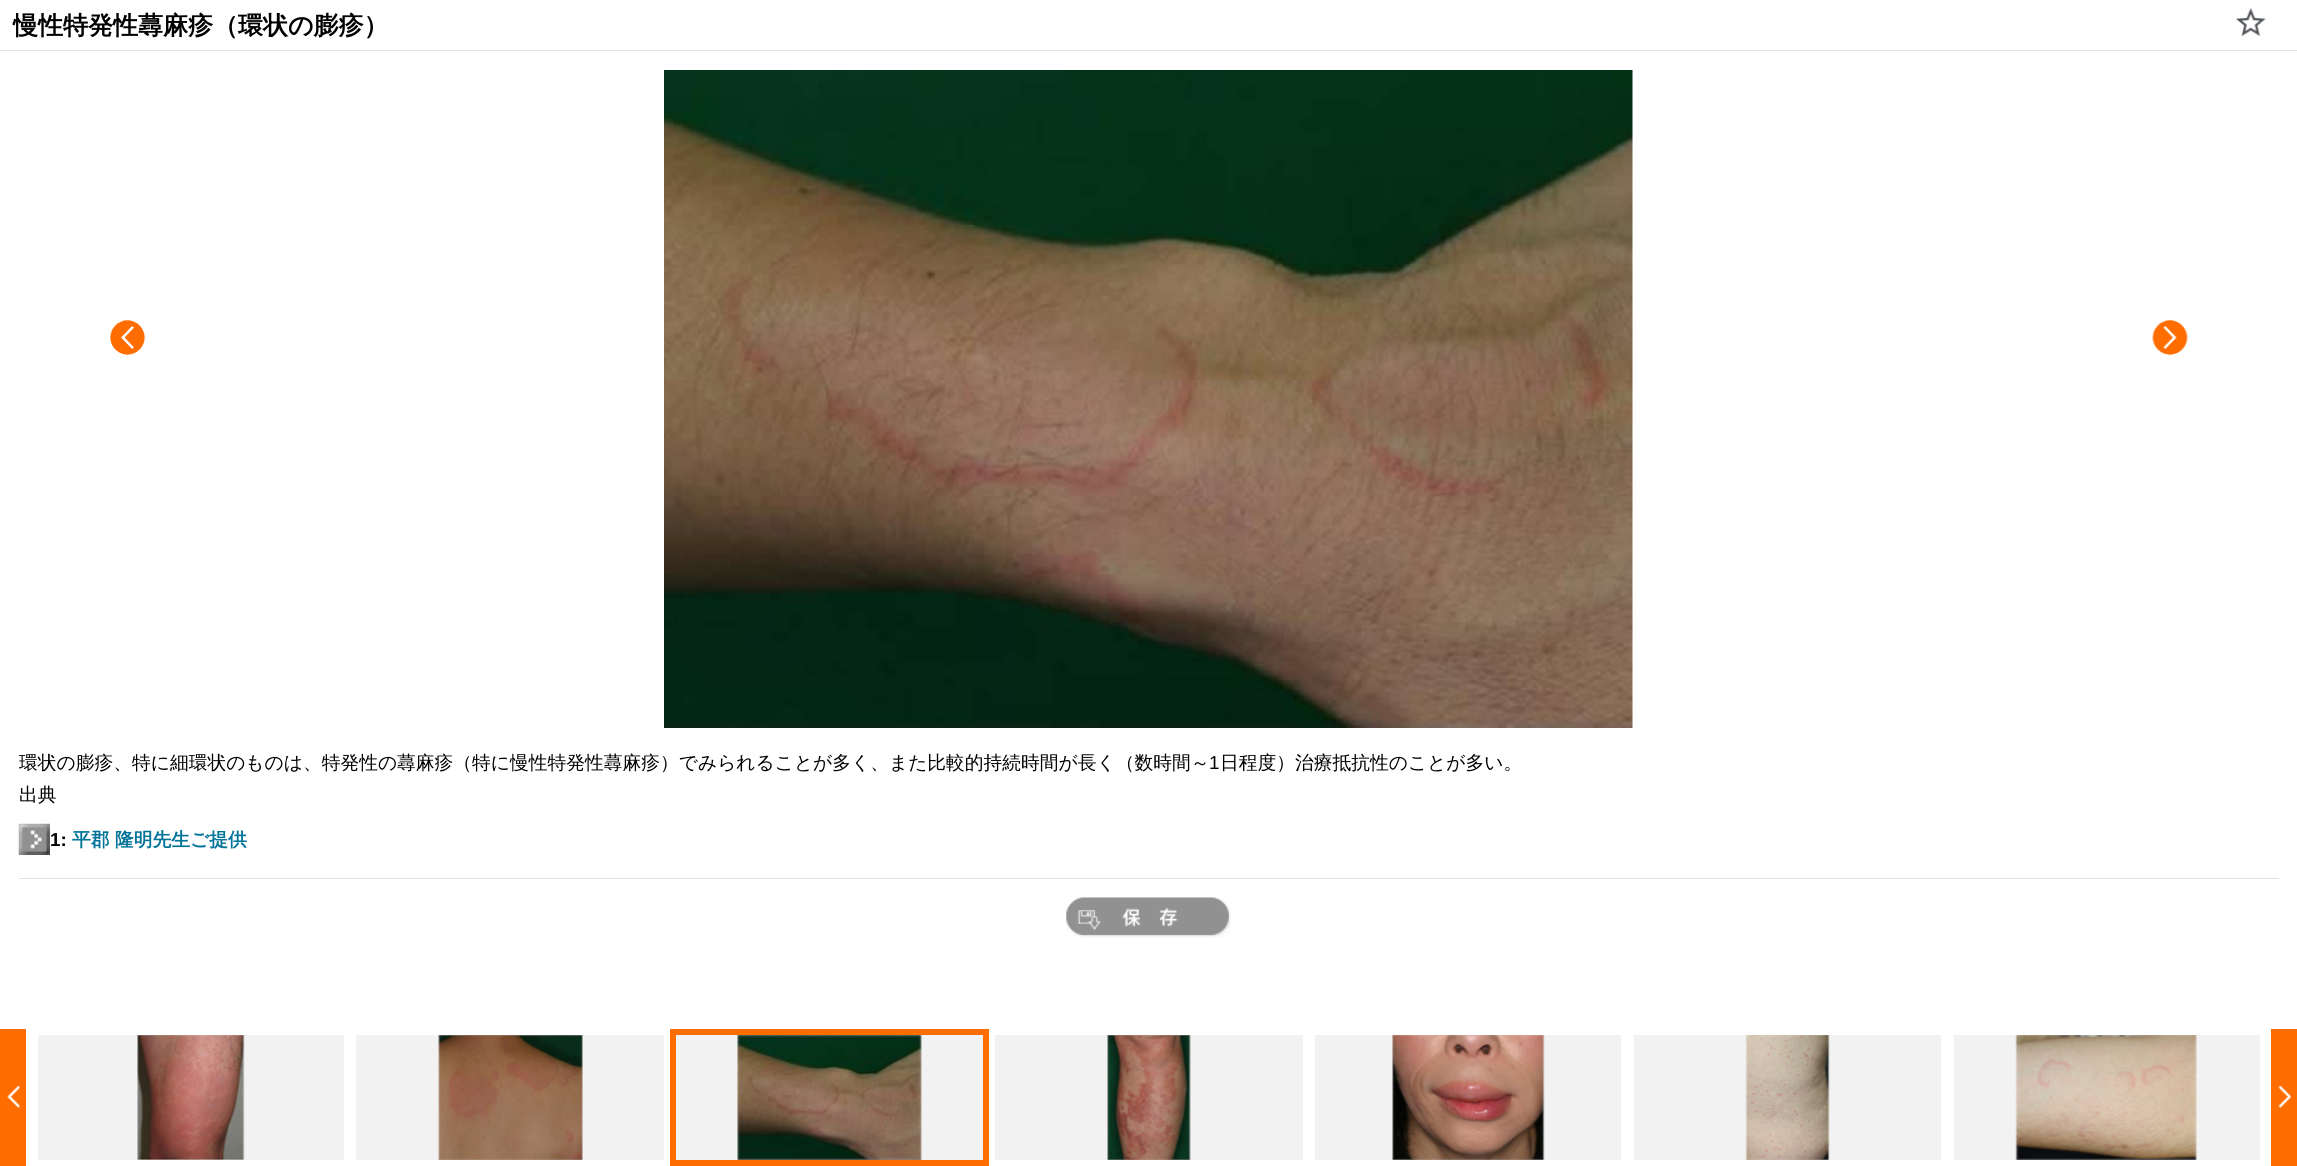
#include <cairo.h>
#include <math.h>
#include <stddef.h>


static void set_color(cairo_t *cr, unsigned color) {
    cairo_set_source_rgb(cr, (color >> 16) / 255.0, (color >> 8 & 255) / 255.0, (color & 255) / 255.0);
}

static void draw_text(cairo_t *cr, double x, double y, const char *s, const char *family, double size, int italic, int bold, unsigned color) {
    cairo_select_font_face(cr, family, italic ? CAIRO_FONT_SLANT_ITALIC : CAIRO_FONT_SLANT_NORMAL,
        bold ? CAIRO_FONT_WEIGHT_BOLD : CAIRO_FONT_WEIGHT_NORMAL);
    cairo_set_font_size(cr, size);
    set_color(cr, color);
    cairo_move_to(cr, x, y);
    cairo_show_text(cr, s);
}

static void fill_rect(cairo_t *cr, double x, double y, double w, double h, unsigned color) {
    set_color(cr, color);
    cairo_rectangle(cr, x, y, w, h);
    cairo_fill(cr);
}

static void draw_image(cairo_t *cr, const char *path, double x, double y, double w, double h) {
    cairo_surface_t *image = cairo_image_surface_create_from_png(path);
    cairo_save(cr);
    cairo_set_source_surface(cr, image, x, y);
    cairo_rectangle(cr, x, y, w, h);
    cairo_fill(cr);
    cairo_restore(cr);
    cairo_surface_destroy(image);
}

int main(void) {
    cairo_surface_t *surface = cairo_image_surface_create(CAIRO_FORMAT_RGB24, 2297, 1166);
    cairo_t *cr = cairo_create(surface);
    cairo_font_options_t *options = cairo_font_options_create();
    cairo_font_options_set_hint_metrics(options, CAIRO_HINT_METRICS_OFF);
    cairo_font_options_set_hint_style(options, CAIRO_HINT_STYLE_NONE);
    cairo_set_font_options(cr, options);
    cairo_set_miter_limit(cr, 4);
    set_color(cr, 0xFFFFFF);
    cairo_paint(cr);
    fill_rect(cr, 0, 50, 2297, 1, 0xDEE2E6);
    draw_text(cr, 13, 34, "慢性特発性蕁麻疹（環状の膨疹）", "WenQuanYi Zen Hei", 25, 0, 1, 0x000000);
    draw_image(cr, "assets/img1.png", 2236, 8, 30, 29);
    draw_image(cr, "assets/img2.png", 664, 70, 969, 658);
    draw_image(cr, "assets/img3.png", 110, 320, 35, 35);
    draw_image(cr, "assets/img4.png", 2152, 320, 36, 35);
    draw_text(cr, 19, 769, "環状の膨疹、特に細環状のものは、特発性の蕁麻疹（特に慢性特発性蕁麻疹）でみられることが多く、また比較的持続時間が長く（数時間～", "WenQuanYi Zen Hei Medium", 18.75, 0, 0, 0x000000);
    draw_text(cr, 1209, 769, "1", "Liberation Sans", 18.75, 0, 0, 0x000000);
    draw_text(cr, 1220, 769, "日程度）治療抵抗性のことが多い。", "WenQuanYi Zen Hei Medium", 18.75, 0, 0, 0x000000);
    draw_text(cr, 19, 801, "出典", "WenQuanYi Zen Hei Medium", 18.75, 0, 0, 0x000000);
    fill_rect(cr, 19, 878, 2260, 1, 0xDFE1E5);
    draw_image(cr, "assets/img5.png", 18, 823, 32, 32);
    draw_text(cr, 50, 846, "1:", "Liberation Sans", 18.75, 0, 1, 0x000000);
    draw_text(cr, 72, 846, "平郡 隆明先生ご提供", "WenQuanYi Zen Hei", 18.75, 0, 1, 0x007398);
    draw_image(cr, "assets/img6.png", 1066, 897, 165, 41);
    fill_rect(cr, 0, 1029, 26, 137, 0xFF6C00);
    draw_image(cr, "assets/img7.png", 7, 1085, 14, 24);
    fill_rect(cr, 38, 1035, 306, 125, 0xF2F2F2);
    draw_image(cr, "assets/img8.png", 137, 1035, 108, 125);
    fill_rect(cr, 356, 1035, 308, 125, 0xF2F2F2);
    draw_image(cr, "assets/img9.png", 438, 1035, 145, 125);
    cairo_rectangle(cr, 673, 1032, 313, 131);
    set_color(cr, 0xFF6C00);
    cairo_set_line_width(cr, 6);
    cairo_stroke(cr);
    fill_rect(cr, 676, 1035, 307, 125, 0xF2F2F2);
    draw_image(cr, "assets/img10.png", 737, 1035, 185, 125);
    fill_rect(cr, 995, 1035, 308, 125, 0xF2F2F2);
    draw_image(cr, "assets/img11.png", 1107, 1035, 84, 125);
    fill_rect(cr, 1315, 1035, 306, 125, 0xF2F2F2);
    draw_image(cr, "assets/img12.png", 1392, 1035, 153, 125);
    fill_rect(cr, 1634, 1035, 307, 125, 0xF2F2F2);
    draw_image(cr, "assets/img13.png", 1745, 1035, 85, 125);
    fill_rect(cr, 1954, 1035, 306, 125, 0xF2F2F2);
    draw_image(cr, "assets/img14.png", 2015, 1035, 182, 125);
    fill_rect(cr, 2271, 1029, 26, 137, 0xFF6C00);
    draw_image(cr, "assets/img15.png", 2278, 1085, 14, 24);
    cairo_surface_write_to_png(surface, "output.png");
    cairo_font_options_destroy(options);
    cairo_destroy(cr);
    cairo_surface_destroy(surface);
    return 0;
}
